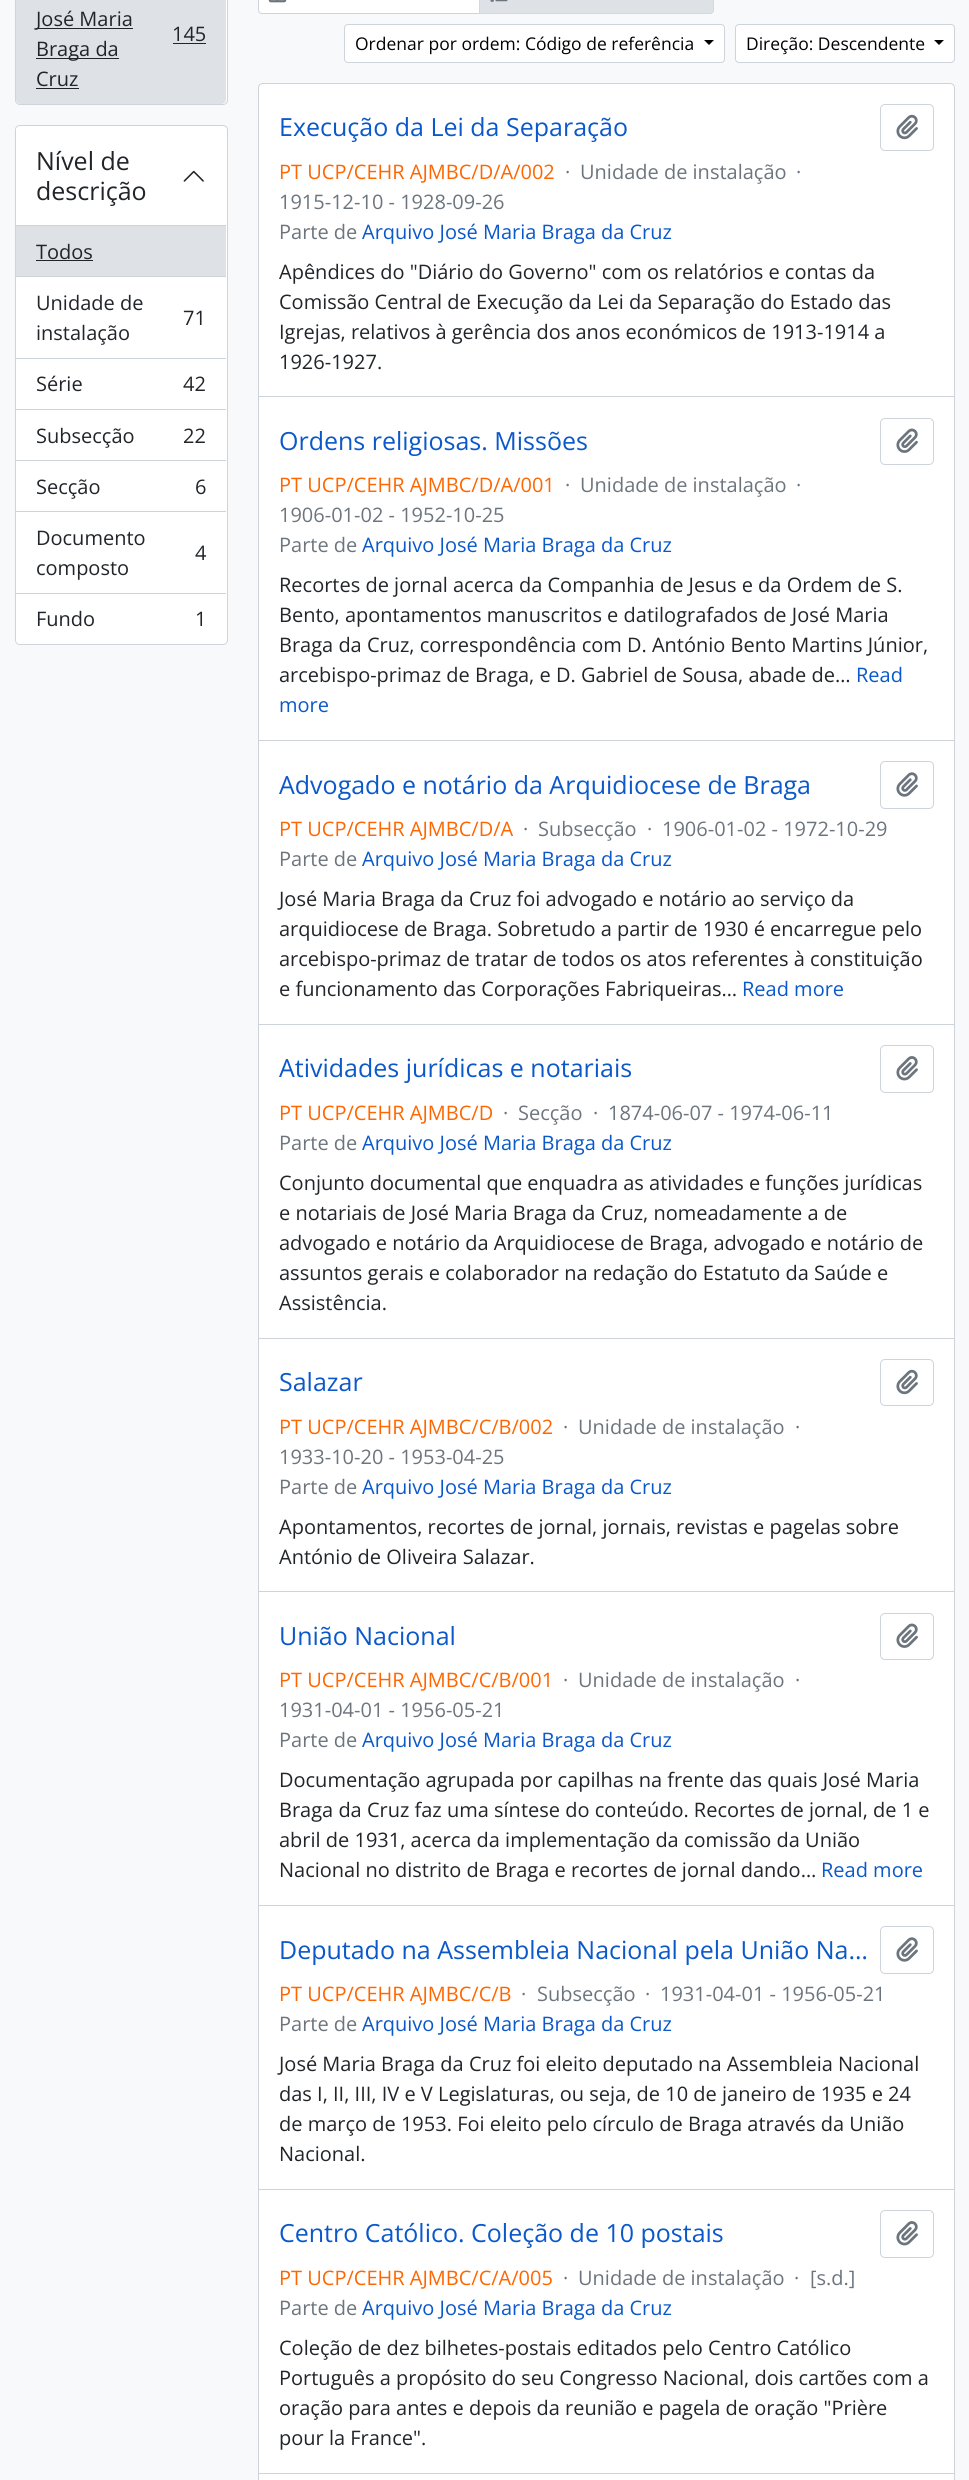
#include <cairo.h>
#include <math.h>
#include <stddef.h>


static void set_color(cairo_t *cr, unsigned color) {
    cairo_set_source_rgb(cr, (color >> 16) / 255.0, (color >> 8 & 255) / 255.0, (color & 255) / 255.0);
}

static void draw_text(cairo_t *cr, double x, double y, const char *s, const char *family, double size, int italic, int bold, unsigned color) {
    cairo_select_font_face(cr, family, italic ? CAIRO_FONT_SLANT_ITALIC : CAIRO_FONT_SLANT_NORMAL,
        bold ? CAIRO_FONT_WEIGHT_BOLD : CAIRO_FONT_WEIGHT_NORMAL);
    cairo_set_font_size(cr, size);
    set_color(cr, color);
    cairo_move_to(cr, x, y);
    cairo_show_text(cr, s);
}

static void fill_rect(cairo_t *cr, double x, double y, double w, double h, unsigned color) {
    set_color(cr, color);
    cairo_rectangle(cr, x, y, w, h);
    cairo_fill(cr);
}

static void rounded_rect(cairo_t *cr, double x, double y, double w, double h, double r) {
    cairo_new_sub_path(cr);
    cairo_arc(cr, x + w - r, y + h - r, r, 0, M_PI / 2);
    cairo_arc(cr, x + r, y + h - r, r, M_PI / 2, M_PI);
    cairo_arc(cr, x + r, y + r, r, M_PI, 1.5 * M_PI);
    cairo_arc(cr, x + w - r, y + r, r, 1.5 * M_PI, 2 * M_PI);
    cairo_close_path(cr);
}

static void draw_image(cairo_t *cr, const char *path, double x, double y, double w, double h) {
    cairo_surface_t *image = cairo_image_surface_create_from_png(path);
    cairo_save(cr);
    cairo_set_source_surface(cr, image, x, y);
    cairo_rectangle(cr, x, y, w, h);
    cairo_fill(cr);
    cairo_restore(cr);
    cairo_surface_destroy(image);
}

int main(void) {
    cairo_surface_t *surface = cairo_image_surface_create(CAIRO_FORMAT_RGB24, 969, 2480);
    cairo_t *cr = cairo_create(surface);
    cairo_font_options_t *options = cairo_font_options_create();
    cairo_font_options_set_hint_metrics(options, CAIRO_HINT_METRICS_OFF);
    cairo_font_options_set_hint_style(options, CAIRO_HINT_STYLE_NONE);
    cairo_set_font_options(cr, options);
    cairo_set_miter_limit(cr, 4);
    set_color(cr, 0xF8F9FA);
    cairo_paint(cr);
    set_color(cr, 0xFFFFFF);
    rounded_rect(cr, 15.5, -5.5, 212, 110, 4.5);
    cairo_fill_preserve(cr);
    set_color(cr, 0xCED4DA);
    cairo_set_line_width(cr, 1);
    cairo_stroke(cr);
    set_color(cr, 0xDEE2E6);
    cairo_new_path(cr);
    cairo_move_to(cr, 16, -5);
    cairo_line_to(cr, 226, -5);
    cairo_line_to(cr, 226, 99);
    cairo_curve_to(cr, 226, 102, 224, 104, 221, 104);
    cairo_line_to(cr, 21, 104);
    cairo_curve_to(cr, 18, 104, 16, 102, 16, 99);
    cairo_close_path(cr);
    cairo_fill(cr);
    fill_rect(cr, 36, 28, 97, 1, 0x212529);
    draw_text(cr, 36, 26, "José Maria", "Open Sans", 20, 0, 0, 0x212529);
    draw_text(cr, 172, 41, "145", "Open Sans", 20, 0, 0, 0x212529);
    fill_rect(cr, 173, 43, 33, 1, 0x212529);
    fill_rect(cr, 36, 58, 83, 1, 0x212529);
    draw_text(cr, 36, 56, "Braga da", "Open Sans", 20, 0, 0, 0x212529);
    draw_text(cr, 36, 86, "Cruz", "Open Sans", 20, 0, 0, 0x212529);
    fill_rect(cr, 36, 88, 43, 1, 0x212529);
    set_color(cr, 0xFFFFFF);
    rounded_rect(cr, 15.5, 125.5, 212, 519, 4.5);
    cairo_fill_preserve(cr);
    set_color(cr, 0xCED4DA);
    cairo_stroke(cr);
    set_color(cr, 0xFFFFFF);
    cairo_new_path(cr);
    cairo_move_to(cr, 20, 126);
    cairo_line_to(cr, 222, 126);
    cairo_curve_to(cr, 224, 126, 226, 128, 226, 130);
    cairo_line_to(cr, 226, 226);
    cairo_line_to(cr, 16, 226);
    cairo_line_to(cr, 16, 130);
    cairo_curve_to(cr, 16, 128, 18, 126, 20, 126);
    cairo_close_path(cr);
    cairo_fill(cr);
    fill_rect(cr, 16, 225, 210, 1, 0xCED4DA);
    draw_text(cr, 36, 170, "Nível de", "Open Sans", 25, 0, 0, 0x212529);
    draw_image(cr, "assets/img1.png", 183, 170, 21, 12);
    draw_text(cr, 36, 200, "descrição", "Open Sans", 25, 0, 0, 0x212529);
    fill_rect(cr, 16, 226, 210, 50, 0xDEE2E6);
    fill_rect(cr, 16, 276, 210, 1, 0xCED4DA);
    draw_text(cr, 36, 259, "Todos", "Open Sans", 20, 0, 0, 0x212529);
    fill_rect(cr, 36, 260, 57, 1, 0x212529);
    fill_rect(cr, 16, 358, 210, 1, 0xCED4DA);
    draw_text(cr, 36, 310, "Unidade de", "Open Sans", 20, 0, 0, 0x212529);
    draw_text(cr, 183, 325, "71", "Open Sans", 20, 0, 0, 0x212529);
    draw_text(cr, 36, 340, "instalação", "Open Sans", 20, 0, 0, 0x212529);
    fill_rect(cr, 16, 409, 210, 1, 0xCED4DA);
    draw_text(cr, 36, 391, "Série", "Open Sans", 20, 0, 0, 0x212529);
    draw_text(cr, 183, 391, "42", "Open Sans", 20, 0, 0, 0x212529);
    fill_rect(cr, 16, 460, 210, 1, 0xCED4DA);
    draw_text(cr, 36, 443, "Subsecção", "Open Sans", 20, 0, 0, 0x212529);
    draw_text(cr, 183, 443, "22", "Open Sans", 20, 0, 0, 0x212529);
    fill_rect(cr, 16, 511, 210, 1, 0xCED4DA);
    draw_text(cr, 36, 494, "Secção", "Open Sans", 20, 0, 0, 0x212529);
    draw_text(cr, 195, 494, "6", "Open Sans", 20, 0, 0, 0x212529);
    fill_rect(cr, 16, 593, 210, 1, 0xCED4DA);
    draw_text(cr, 36, 545, "Documento", "Open Sans", 20, 0, 0, 0x212529);
    draw_text(cr, 195, 560, "4", "Open Sans", 20, 0, 0, 0x212529);
    draw_text(cr, 36, 575, "composto", "Open Sans", 20, 0, 0, 0x212529);
    set_color(cr, 0xFFFFFF);
    cairo_new_path(cr);
    cairo_move_to(cr, 16, 594);
    cairo_line_to(cr, 226, 594);
    cairo_line_to(cr, 226, 639);
    cairo_curve_to(cr, 226, 642, 224, 644, 221, 644);
    cairo_line_to(cr, 21, 644);
    cairo_curve_to(cr, 18, 644, 16, 642, 16, 639);
    cairo_close_path(cr);
    cairo_fill(cr);
    draw_text(cr, 36, 626, "Fundo", "Open Sans", 20, 0, 0, 0x212529);
    draw_text(cr, 195, 626, "1", "Open Sans", 20, 0, 0, 0x212529);
    set_color(cr, 0xFFFFFF);
    cairo_new_path(cr);
    cairo_move_to(cr, 262, -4.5);
    cairo_line_to(cr, 479.5, -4.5);
    cairo_line_to(cr, 479.5, 13.5);
    cairo_line_to(cr, 262, 13.5);
    cairo_curve_to(cr, 260, 13.5, 258.5, 12, 258.5, 10);
    cairo_line_to(cr, 258.5, -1);
    cairo_curve_to(cr, 258.5, -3, 260, -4.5, 262, -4.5);
    cairo_close_path(cr);
    cairo_fill_preserve(cr);
    set_color(cr, 0xCED4DA);
    cairo_stroke(cr);
    draw_image(cr, "assets/img2.png", 268, 0, 19, 3);
    set_color(cr, 0xDEE2E6);
    cairo_new_path(cr);
    cairo_move_to(cr, 479.5, -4.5);
    cairo_line_to(cr, 710, -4.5);
    cairo_curve_to(cr, 712, -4.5, 713.5, -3, 713.5, -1);
    cairo_line_to(cr, 713.5, 10);
    cairo_curve_to(cr, 713.5, 12, 712, 13.5, 710, 13.5);
    cairo_line_to(cr, 479.5, 13.5);
    cairo_close_path(cr);
    cairo_fill_preserve(cr);
    set_color(cr, 0xD3D8DE);
    cairo_stroke(cr);
    draw_image(cr, "assets/img3.png", 490, 0, 18, 2);
    set_color(cr, 0xFFFFFF);
    rounded_rect(cr, 344.5, 24.5, 380, 38, 3.5);
    cairo_fill_preserve(cr);
    set_color(cr, 0xCED4DA);
    cairo_stroke(cr);
    draw_text(cr, 355, 50, "Ordenar por ordem: Código de referência", "Open Sans", 17.5, 0, 0, 0x000000);
    cairo_new_path(cr);
    cairo_move_to(cr, 704, 40);
    cairo_line_to(cr, 714, 40);
    cairo_line_to(cr, 709, 45);
    cairo_close_path(cr);
    cairo_fill(cr);
    set_color(cr, 0xFFFFFF);
    rounded_rect(cr, 735.5, 24.5, 219, 38, 3.5);
    cairo_fill_preserve(cr);
    set_color(cr, 0xCED4DA);
    cairo_stroke(cr);
    draw_text(cr, 746, 50, "Direção: Descendente", "Open Sans", 17.5, 0, 0, 0x000000);
    cairo_new_path(cr);
    cairo_move_to(cr, 934, 40);
    cairo_line_to(cr, 944, 40);
    cairo_line_to(cr, 939, 45);
    cairo_close_path(cr);
    cairo_fill(cr);
    set_color(cr, 0xFFFFFF);
    rounded_rect(cr, 258.5, 83.5, 696, 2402, 4.5);
    cairo_fill_preserve(cr);
    set_color(cr, 0xCED4DA);
    cairo_stroke(cr);
    fill_rect(cr, 259, 396, 695, 1, 0xCED4DA);
    draw_text(cr, 279, 136, "Execução da Lei da Separação", "Open Sans", 25, 0, 0, 0x0A58CA);
    rounded_rect(cr, 880.5, 104.5, 53, 46, 4.5);
    set_color(cr, 0xCED4DA);
    cairo_stroke(cr);
    draw_image(cr, "assets/img4.png", 896, 114, 22, 26);
    draw_text(cr, 279, 179, "PT UCP/CEHR AJMBC/D/A/002", "Open Sans", 20, 0, 0, 0xFF6600);
    draw_text(cr, 565, 179, "·", "Open Sans", 20, 0, 0, 0x6C757D);
    draw_text(cr, 580, 179, "Unidade de instalação", "Open Sans", 20, 0, 0, 0x6C757D);
    draw_text(cr, 796, 179, "·", "Open Sans", 20, 0, 0, 0x6C757D);
    draw_text(cr, 279, 209, "1915-12-10 - 1928-09-26", "Open Sans", 20, 0, 0, 0x6C757D);
    draw_text(cr, 279, 239, "Parte de", "Open Sans", 20, 0, 0, 0x6C757D);
    draw_text(cr, 362, 239, "Arquivo José Maria Braga da Cruz", "Open Sans", 20, 0, 0, 0x0A58CA);
    draw_text(cr, 279, 279, "Apêndices do \"Diário do Governo\" com os relatórios e contas da", "Open Sans", 20, 0, 0, 0x212529);
    draw_text(cr, 279, 309, "Comissão Central de Execução da Lei da Separação do Estado das", "Open Sans", 20, 0, 0, 0x212529);
    draw_text(cr, 279, 339, "Igrejas, relativos à gerência dos anos económicos de 1913-1914 a", "Open Sans", 20, 0, 0, 0x212529);
    draw_text(cr, 279, 369, "1926-1927.", "Open Sans", 20, 0, 0, 0x212529);
    fill_rect(cr, 259, 740, 695, 1, 0xCED4DA);
    draw_text(cr, 279, 450, "Ordens religiosas. Missões", "Open Sans", 25, 0, 0, 0x0A58CA);
    rounded_rect(cr, 880.5, 418.5, 53, 46, 4.5);
    set_color(cr, 0xCED4DA);
    cairo_stroke(cr);
    draw_image(cr, "assets/img5.png", 896, 428, 22, 25);
    draw_text(cr, 279, 492, "PT UCP/CEHR AJMBC/D/A/001", "Open Sans", 20, 0, 0, 0xFF6600);
    draw_text(cr, 565, 492, "·", "Open Sans", 20, 0, 0, 0x6C757D);
    draw_text(cr, 580, 492, "Unidade de instalação", "Open Sans", 20, 0, 0, 0x6C757D);
    draw_text(cr, 796, 492, "·", "Open Sans", 20, 0, 0, 0x6C757D);
    draw_text(cr, 279, 522, "1906-01-02 - 1952-10-25", "Open Sans", 20, 0, 0, 0x6C757D);
    draw_text(cr, 279, 552, "Parte de", "Open Sans", 20, 0, 0, 0x6C757D);
    draw_text(cr, 362, 552, "Arquivo José Maria Braga da Cruz", "Open Sans", 20, 0, 0, 0x0A58CA);
    draw_text(cr, 279, 592, "Recortes de jornal acerca da Companhia de Jesus e da Ordem de S.", "Open Sans", 20, 0, 0, 0x212529);
    draw_text(cr, 279, 622, "Bento, apontamentos manuscritos e datilografados de José Maria", "Open Sans", 20, 0, 0, 0x212529);
    draw_text(cr, 279, 652, "Braga da Cruz, correspondência com D. António Bento Martins Júnior,", "Open Sans", 20, 0, 0, 0x212529);
    draw_text(cr, 279, 682, "arcebispo-primaz de Braga, e D. Gabriel de Sousa, abade de…", "Open Sans", 20, 0, 0, 0x212529);
    draw_text(cr, 856, 682, "Read", "Open Sans", 20, 0, 0, 0x0A58CA);
    draw_text(cr, 279, 712, "more", "Open Sans", 20, 0, 0, 0x0A58CA);
    fill_rect(cr, 259, 1024, 695, 1, 0xCED4DA);
    draw_text(cr, 279, 794, "Advogado e notário da Arquidiocese de Braga", "Open Sans", 25, 0, 0, 0x0A58CA);
    rounded_rect(cr, 880.5, 761.5, 53, 47, 4.5);
    set_color(cr, 0xCED4DA);
    cairo_stroke(cr);
    draw_image(cr, "assets/img6.png", 896, 772, 22, 25);
    draw_text(cr, 279, 836, "PT UCP/CEHR AJMBC/D/A", "Open Sans", 20, 0, 0, 0xFF6600);
    draw_text(cr, 523, 836, "·", "Open Sans", 20, 0, 0, 0x6C757D);
    draw_text(cr, 538, 836, "Subsecção", "Open Sans", 20, 0, 0, 0x6C757D);
    draw_text(cr, 647, 836, "·", "Open Sans", 20, 0, 0, 0x6C757D);
    draw_text(cr, 662, 836, "1906-01-02 - 1972-10-29", "Open Sans", 20, 0, 0, 0x6C757D);
    draw_text(cr, 279, 866, "Parte de", "Open Sans", 20, 0, 0, 0x6C757D);
    draw_text(cr, 362, 866, "Arquivo José Maria Braga da Cruz", "Open Sans", 20, 0, 0, 0x0A58CA);
    draw_text(cr, 279, 906, "José Maria Braga da Cruz foi advogado e notário ao serviço da", "Open Sans", 20, 0, 0, 0x212529);
    draw_text(cr, 279, 936, "arquidiocese de Braga. Sobretudo a partir de 1930 é encarregue pelo", "Open Sans", 20, 0, 0, 0x212529);
    draw_text(cr, 279, 966, "arcebispo-primaz de tratar de todos os atos referentes à constituição", "Open Sans", 20, 0, 0, 0x212529);
    draw_text(cr, 279, 996, "e funcionamento das Corporações Fabriqueiras…", "Open Sans", 20, 0, 0, 0x212529);
    draw_text(cr, 742, 996, "Read more", "Open Sans", 20, 0, 0, 0x0A58CA);
    fill_rect(cr, 259, 1338, 695, 1, 0xCED4DA);
    draw_text(cr, 279, 1077, "Atividades jurídicas e notariais", "Open Sans", 25, 0, 0, 0x0A58CA);
    rounded_rect(cr, 880.5, 1045.5, 53, 47, 4.5);
    set_color(cr, 0xCED4DA);
    cairo_stroke(cr);
    draw_image(cr, "assets/img7.png", 896, 1056, 22, 25);
    draw_text(cr, 279, 1120, "PT UCP/CEHR AJMBC/D", "Open Sans", 20, 0, 0, 0xFF6600);
    draw_text(cr, 503, 1120, "·", "Open Sans", 20, 0, 0, 0x6C757D);
    draw_text(cr, 518, 1120, "Secção", "Open Sans", 20, 0, 0, 0x6C757D);
    draw_text(cr, 593, 1120, "·", "Open Sans", 20, 0, 0, 0x6C757D);
    draw_text(cr, 608, 1120, "1874-06-07 - 1974-06-11", "Open Sans", 20, 0, 0, 0x6C757D);
    draw_text(cr, 279, 1150, "Parte de", "Open Sans", 20, 0, 0, 0x6C757D);
    draw_text(cr, 362, 1150, "Arquivo José Maria Braga da Cruz", "Open Sans", 20, 0, 0, 0x0A58CA);
    draw_text(cr, 279, 1190, "Conjunto documental que enquadra as atividades e funções jurídicas", "Open Sans", 20, 0, 0, 0x212529);
    draw_text(cr, 279, 1220, "e notariais de José Maria Braga da Cruz, nomeadamente a de", "Open Sans", 20, 0, 0, 0x212529);
    draw_text(cr, 279, 1250, "advogado e notário da Arquidiocese de Braga, advogado e notário de", "Open Sans", 20, 0, 0, 0x212529);
    draw_text(cr, 279, 1280, "assuntos gerais e colaborador na redação do Estatuto da Saúde e", "Open Sans", 20, 0, 0, 0x212529);
    draw_text(cr, 279, 1310, "Assistência.", "Open Sans", 20, 0, 0, 0x212529);
    fill_rect(cr, 259, 1591, 695, 1, 0xCED4DA);
    draw_text(cr, 279, 1391, "Salazar", "Open Sans", 25, 0, 0, 0x0A58CA);
    rounded_rect(cr, 880.5, 1359.5, 53, 46, 4.5);
    set_color(cr, 0xCED4DA);
    cairo_stroke(cr);
    draw_image(cr, "assets/img4.png", 896, 1369, 22, 26);
    draw_text(cr, 279, 1434, "PT UCP/CEHR AJMBC/C/B/002", "Open Sans", 20, 0, 0, 0xFF6600);
    draw_text(cr, 563, 1434, "·", "Open Sans", 20, 0, 0, 0x6C757D);
    draw_text(cr, 578, 1434, "Unidade de instalação", "Open Sans", 20, 0, 0, 0x6C757D);
    draw_text(cr, 795, 1434, "·", "Open Sans", 20, 0, 0, 0x6C757D);
    draw_text(cr, 279, 1464, "1933-10-20 - 1953-04-25", "Open Sans", 20, 0, 0, 0x6C757D);
    draw_text(cr, 279, 1494, "Parte de", "Open Sans", 20, 0, 0, 0x6C757D);
    draw_text(cr, 362, 1494, "Arquivo José Maria Braga da Cruz", "Open Sans", 20, 0, 0, 0x0A58CA);
    draw_text(cr, 279, 1534, "Apontamentos, recortes de jornal, jornais, revistas e pagelas sobre", "Open Sans", 20, 0, 0, 0x212529);
    draw_text(cr, 279, 1564, "António de Oliveira Salazar.", "Open Sans", 20, 0, 0, 0x212529);
    fill_rect(cr, 259, 1905, 695, 1, 0xCED4DA);
    draw_text(cr, 279, 1645, "União Nacional", "Open Sans", 25, 0, 0, 0x0A58CA);
    rounded_rect(cr, 880.5, 1613.5, 53, 46, 4.5);
    set_color(cr, 0xCED4DA);
    cairo_stroke(cr);
    draw_image(cr, "assets/img5.png", 896, 1623, 22, 25);
    draw_text(cr, 279, 1687, "PT UCP/CEHR AJMBC/C/B/001", "Open Sans", 20, 0, 0, 0xFF6600);
    draw_text(cr, 563, 1687, "·", "Open Sans", 20, 0, 0, 0x6C757D);
    draw_text(cr, 578, 1687, "Unidade de instalação", "Open Sans", 20, 0, 0, 0x6C757D);
    draw_text(cr, 795, 1687, "·", "Open Sans", 20, 0, 0, 0x6C757D);
    draw_text(cr, 279, 1717, "1931-04-01 - 1956-05-21", "Open Sans", 20, 0, 0, 0x6C757D);
    draw_text(cr, 279, 1747, "Parte de", "Open Sans", 20, 0, 0, 0x6C757D);
    draw_text(cr, 362, 1747, "Arquivo José Maria Braga da Cruz", "Open Sans", 20, 0, 0, 0x0A58CA);
    draw_text(cr, 279, 1787, "Documentação agrupada por capilhas na frente das quais José Maria", "Open Sans", 20, 0, 0, 0x212529);
    draw_text(cr, 279, 1817, "Braga da Cruz faz uma síntese do conteúdo. Recortes de jornal, de 1 e", "Open Sans", 20, 0, 0, 0x212529);
    draw_text(cr, 279, 1847, "abril de 1931, acerca da implementação da comissão da União", "Open Sans", 20, 0, 0, 0x212529);
    draw_text(cr, 279, 1877, "Nacional no distrito de Braga e recortes de jornal dando…", "Open Sans", 20, 0, 0, 0x212529);
    draw_text(cr, 821, 1877, "Read more", "Open Sans", 20, 0, 0, 0x0A58CA);
    fill_rect(cr, 259, 2189, 695, 1, 0xCED4DA);
    draw_text(cr, 279, 1959, "Deputado na Assembleia Nacional pela União Na…", "Open Sans", 25, 0, 0, 0x0A58CA);
    rounded_rect(cr, 880.5, 1926.5, 53, 47, 4.5);
    set_color(cr, 0xCED4DA);
    cairo_stroke(cr);
    draw_image(cr, "assets/img6.png", 896, 1937, 22, 25);
    draw_text(cr, 279, 2001, "PT UCP/CEHR AJMBC/C/B", "Open Sans", 20, 0, 0, 0xFF6600);
    draw_text(cr, 521, 2001, "·", "Open Sans", 20, 0, 0, 0x6C757D);
    draw_text(cr, 537, 2001, "Subsecção", "Open Sans", 20, 0, 0, 0x6C757D);
    draw_text(cr, 645, 2001, "·", "Open Sans", 20, 0, 0, 0x6C757D);
    draw_text(cr, 660, 2001, "1931-04-01 - 1956-05-21", "Open Sans", 20, 0, 0, 0x6C757D);
    draw_text(cr, 279, 2031, "Parte de", "Open Sans", 20, 0, 0, 0x6C757D);
    draw_text(cr, 362, 2031, "Arquivo José Maria Braga da Cruz", "Open Sans", 20, 0, 0, 0x0A58CA);
    draw_text(cr, 279, 2071, "José Maria Braga da Cruz foi eleito deputado na Assembleia Nacional", "Open Sans", 20, 0, 0, 0x212529);
    draw_text(cr, 279, 2101, "das I, II, III, IV e V Legislaturas, ou seja, de 10 de janeiro de 1935 e 24", "Open Sans", 20, 0, 0, 0x212529);
    draw_text(cr, 279, 2131, "de março de 1953. Foi eleito pelo círculo de Braga através da União", "Open Sans", 20, 0, 0, 0x212529);
    draw_text(cr, 279, 2161, "Nacional.", "Open Sans", 20, 0, 0, 0x212529);
    fill_rect(cr, 259, 2473, 695, 1, 0xCED4DA);
    draw_text(cr, 279, 2242, "Centro Católico. Coleção de 10 postais", "Open Sans", 25, 0, 0, 0x0A58CA);
    rounded_rect(cr, 880.5, 2210.5, 53, 47, 4.5);
    set_color(cr, 0xCED4DA);
    cairo_stroke(cr);
    draw_image(cr, "assets/img7.png", 896, 2221, 22, 25);
    draw_text(cr, 279, 2285, "PT UCP/CEHR AJMBC/C/A/005", "Open Sans", 20, 0, 0, 0xFF6600);
    draw_text(cr, 563, 2285, "·", "Open Sans", 20, 0, 0, 0x6C757D);
    draw_text(cr, 578, 2285, "Unidade de instalação", "Open Sans", 20, 0, 0, 0x6C757D);
    draw_text(cr, 794, 2285, "·", "Open Sans", 20, 0, 0, 0x6C757D);
    draw_text(cr, 810, 2285, "[s.d.]", "Open Sans", 20, 0, 0, 0x6C757D);
    draw_text(cr, 279, 2315, "Parte de", "Open Sans", 20, 0, 0, 0x6C757D);
    draw_text(cr, 362, 2315, "Arquivo José Maria Braga da Cruz", "Open Sans", 20, 0, 0, 0x0A58CA);
    draw_text(cr, 279, 2355, "Coleção de dez bilhetes-postais editados pelo Centro Católico", "Open Sans", 20, 0, 0, 0x212529);
    draw_text(cr, 279, 2385, "Português a propósito do seu Congresso Nacional, dois cartões com a", "Open Sans", 20, 0, 0, 0x212529);
    draw_text(cr, 279, 2415, "oração para antes e depois da reunião e pagela de oração \"Prière", "Open Sans", 20, 0, 0, 0x212529);
    draw_text(cr, 279, 2445, "pour la France\".", "Open Sans", 20, 0, 0, 0x212529);
    cairo_surface_write_to_png(surface, "output.png");
    cairo_font_options_destroy(options);
    cairo_destroy(cr);
    cairo_surface_destroy(surface);
    return 0;
}
